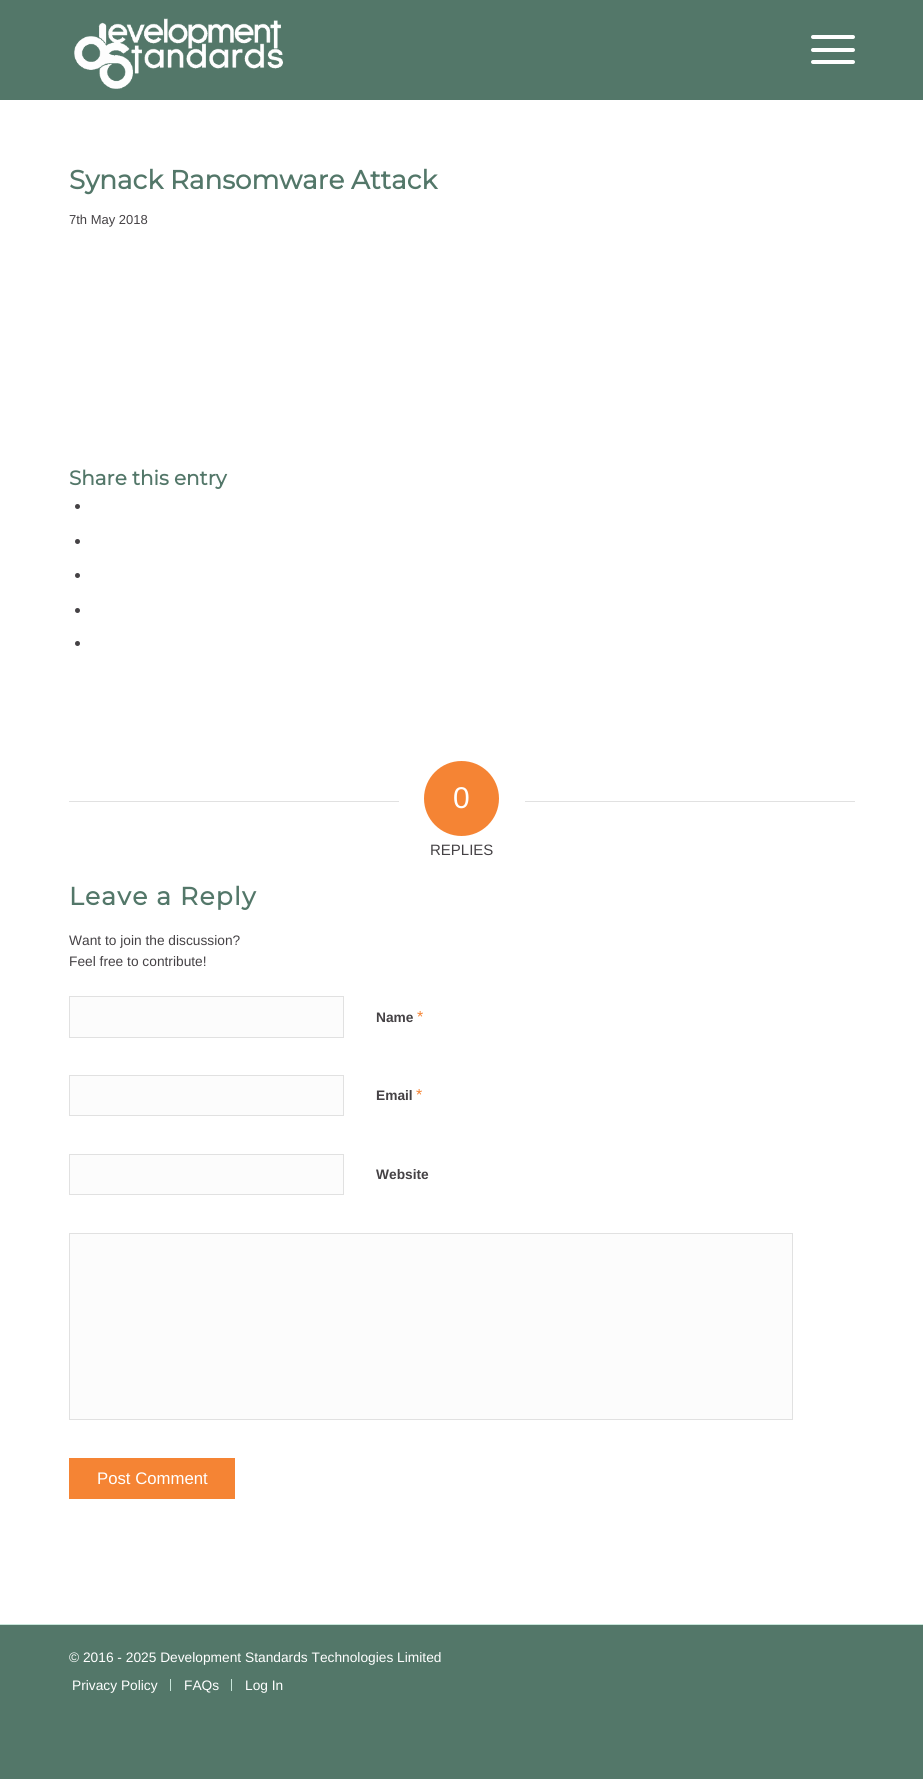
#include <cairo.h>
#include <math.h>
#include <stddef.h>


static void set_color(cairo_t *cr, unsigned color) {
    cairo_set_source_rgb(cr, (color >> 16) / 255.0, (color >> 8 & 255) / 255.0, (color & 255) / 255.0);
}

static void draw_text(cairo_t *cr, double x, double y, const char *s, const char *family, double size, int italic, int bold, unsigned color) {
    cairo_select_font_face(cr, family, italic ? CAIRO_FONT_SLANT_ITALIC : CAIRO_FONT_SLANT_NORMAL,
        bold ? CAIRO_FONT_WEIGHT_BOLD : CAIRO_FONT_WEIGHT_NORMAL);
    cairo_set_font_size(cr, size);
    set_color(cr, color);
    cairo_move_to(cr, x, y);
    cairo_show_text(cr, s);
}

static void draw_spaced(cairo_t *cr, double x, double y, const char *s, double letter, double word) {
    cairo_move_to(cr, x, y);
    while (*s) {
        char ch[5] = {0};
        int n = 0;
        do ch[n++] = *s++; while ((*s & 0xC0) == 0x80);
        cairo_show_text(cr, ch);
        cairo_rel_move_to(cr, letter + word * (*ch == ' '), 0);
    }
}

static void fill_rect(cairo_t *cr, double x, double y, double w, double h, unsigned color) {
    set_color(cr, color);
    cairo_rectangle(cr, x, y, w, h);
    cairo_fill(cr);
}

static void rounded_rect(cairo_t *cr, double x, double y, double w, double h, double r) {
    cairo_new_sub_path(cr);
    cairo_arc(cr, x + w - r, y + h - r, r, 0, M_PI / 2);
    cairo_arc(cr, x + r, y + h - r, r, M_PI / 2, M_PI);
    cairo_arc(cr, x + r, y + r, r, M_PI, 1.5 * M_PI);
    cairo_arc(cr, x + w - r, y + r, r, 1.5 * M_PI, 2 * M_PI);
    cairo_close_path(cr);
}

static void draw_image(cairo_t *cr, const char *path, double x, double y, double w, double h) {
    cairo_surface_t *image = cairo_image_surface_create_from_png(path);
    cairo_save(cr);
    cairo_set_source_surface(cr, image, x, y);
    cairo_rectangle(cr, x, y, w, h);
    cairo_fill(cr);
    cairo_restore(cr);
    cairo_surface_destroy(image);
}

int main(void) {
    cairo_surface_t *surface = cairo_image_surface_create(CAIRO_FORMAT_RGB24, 923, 1779);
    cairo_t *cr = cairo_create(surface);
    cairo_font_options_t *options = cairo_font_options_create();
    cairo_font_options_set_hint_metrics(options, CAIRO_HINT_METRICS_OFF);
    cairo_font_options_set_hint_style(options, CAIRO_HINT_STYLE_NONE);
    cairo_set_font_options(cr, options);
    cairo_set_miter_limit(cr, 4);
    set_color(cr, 0x537769);
    cairo_paint(cr);
    draw_image(cr, "assets/img1.png", 74, 18, 209, 71);
    set_color(cr, 0xFFFFFF);
    rounded_rect(cr, 811, 48, 44, 4, 2);
    cairo_fill(cr);
    rounded_rect(cr, 811, 35, 44, 4, 2);
    cairo_fill(cr);
    rounded_rect(cr, 811, 60, 44, 4, 2);
    cairo_fill(cr);
    fill_rect(cr, 0, 100, 923, 1524, 0xFFFFFF);
    draw_text(cr, 69, 189, "Synack Ransomware Attack", "Montserrat", 26.25, 0, 1, 0x537769);
    draw_text(cr, 69, 224, "7th May 2018", "Liberation Sans", 13, 0, 0, 0x454245);
    draw_text(cr, 69, 485, "Share this entry", "Montserrat", 20, 0, 1, 0x537769);
    set_color(cr, 0x454245);
    cairo_new_path(cr);
    cairo_arc(cr, 77.5, 506.5, 2.5, 0, 2 * M_PI);
    cairo_fill(cr);
    cairo_arc(cr, 77.5, 541.5, 2.5, 0, 2 * M_PI);
    cairo_fill(cr);
    cairo_arc(cr, 77.5, 575.5, 2.5, 0, 2 * M_PI);
    cairo_fill(cr);
    cairo_arc(cr, 77.5, 610.5, 2.5, 0, 2 * M_PI);
    cairo_fill(cr);
    cairo_arc(cr, 77.5, 643.5, 2.5, 0, 2 * M_PI);
    cairo_fill(cr);
    fill_rect(cr, 69, 801, 330, 1, 0xE1E1E1);
    set_color(cr, 0xF58434);
    cairo_arc(cr, 461.5, 798.5, 37.5, 0, 2 * M_PI);
    cairo_fill(cr);
    draw_text(cr, 453, 808, "0", "Liberation Sans", 30, 0, 0, 0xFFFFFF);
    fill_rect(cr, 525, 801, 330, 1, 0xE1E1E1);
    draw_text(cr, 430, 855, "REPLIES", "Liberation Sans", 15, 0, 0, 0x454245);
    cairo_select_font_face(cr, "Montserrat", CAIRO_FONT_SLANT_NORMAL, CAIRO_FONT_WEIGHT_BOLD);
    cairo_set_font_size(cr, 25);
    set_color(cr, 0x537769);
    draw_spaced(cr, 69, 905, "Leave a Reply", 1.25, 0);
    draw_text(cr, 69, 945, "Want to join the discussion?", "Liberation Sans", 13.75, 0, 0, 0x454245);
    draw_text(cr, 69, 966, "Feel free to contribute!", "Liberation Sans", 13.75, 0, 0, 0x454245);
    set_color(cr, 0xFCFCFC);
    cairo_rectangle(cr, 69.5, 996.5, 274, 41);
    cairo_fill_preserve(cr);
    set_color(cr, 0xE1E1E1);
    cairo_set_line_width(cr, 1);
    cairo_stroke(cr);
    draw_text(cr, 376, 1022, "Name", "Liberation Sans", 13.75, 0, 1, 0x454245);
    draw_text(cr, 417, 1022, "*", "Liberation Sans", 16, 0, 0, 0xF58434);
    set_color(cr, 0xFCFCFC);
    cairo_rectangle(cr, 69.5, 1075.5, 274, 40);
    cairo_fill_preserve(cr);
    set_color(cr, 0xE1E1E1);
    cairo_stroke(cr);
    draw_text(cr, 376, 1100, "Email", "Liberation Sans", 13.75, 0, 1, 0x454245);
    draw_text(cr, 416, 1100, "*", "Liberation Sans", 16, 0, 0, 0xF58434);
    set_color(cr, 0xFCFCFC);
    cairo_rectangle(cr, 69.5, 1154.5, 274, 40);
    cairo_fill_preserve(cr);
    set_color(cr, 0xE1E1E1);
    cairo_stroke(cr);
    draw_text(cr, 376, 1179, "Website", "Liberation Sans", 13.75, 0, 1, 0x454245);
    set_color(cr, 0xFCFCFC);
    cairo_rectangle(cr, 69.5, 1233.5, 723, 186);
    cairo_fill_preserve(cr);
    set_color(cr, 0xE1E1E1);
    cairo_stroke(cr);
    fill_rect(cr, 69, 1458, 166, 41, 0xF58434);
    draw_text(cr, 97, 1484, "Post Comment", "Liberation Sans", 16.75, 0, 0, 0xFFFFFF);
    fill_rect(cr, 0, 1624, 923, 1, 0xC8E6DA);
    draw_text(cr, 69, 1662, "© 2016 - 2025 Development Standards Technologies Limited", "Liberation Sans", 13.75, 0, 0, 0xFFFFFF);
    draw_text(cr, 72, 1690, "Privacy Policy", "Liberation Sans", 13.75, 0, 0, 0xFFFFFF);
    fill_rect(cr, 170, 1679, 1, 12, 0xC8E6DA);
    draw_text(cr, 184, 1690, "FAQs", "Liberation Sans", 13.75, 0, 0, 0xFFFFFF);
    fill_rect(cr, 231, 1679, 1, 12, 0xC8E6DA);
    draw_text(cr, 245, 1690, "Log In", "Liberation Sans", 13.75, 0, 0, 0xFFFFFF);
    cairo_surface_write_to_png(surface, "output.png");
    cairo_font_options_destroy(options);
    cairo_destroy(cr);
    cairo_surface_destroy(surface);
    return 0;
}
